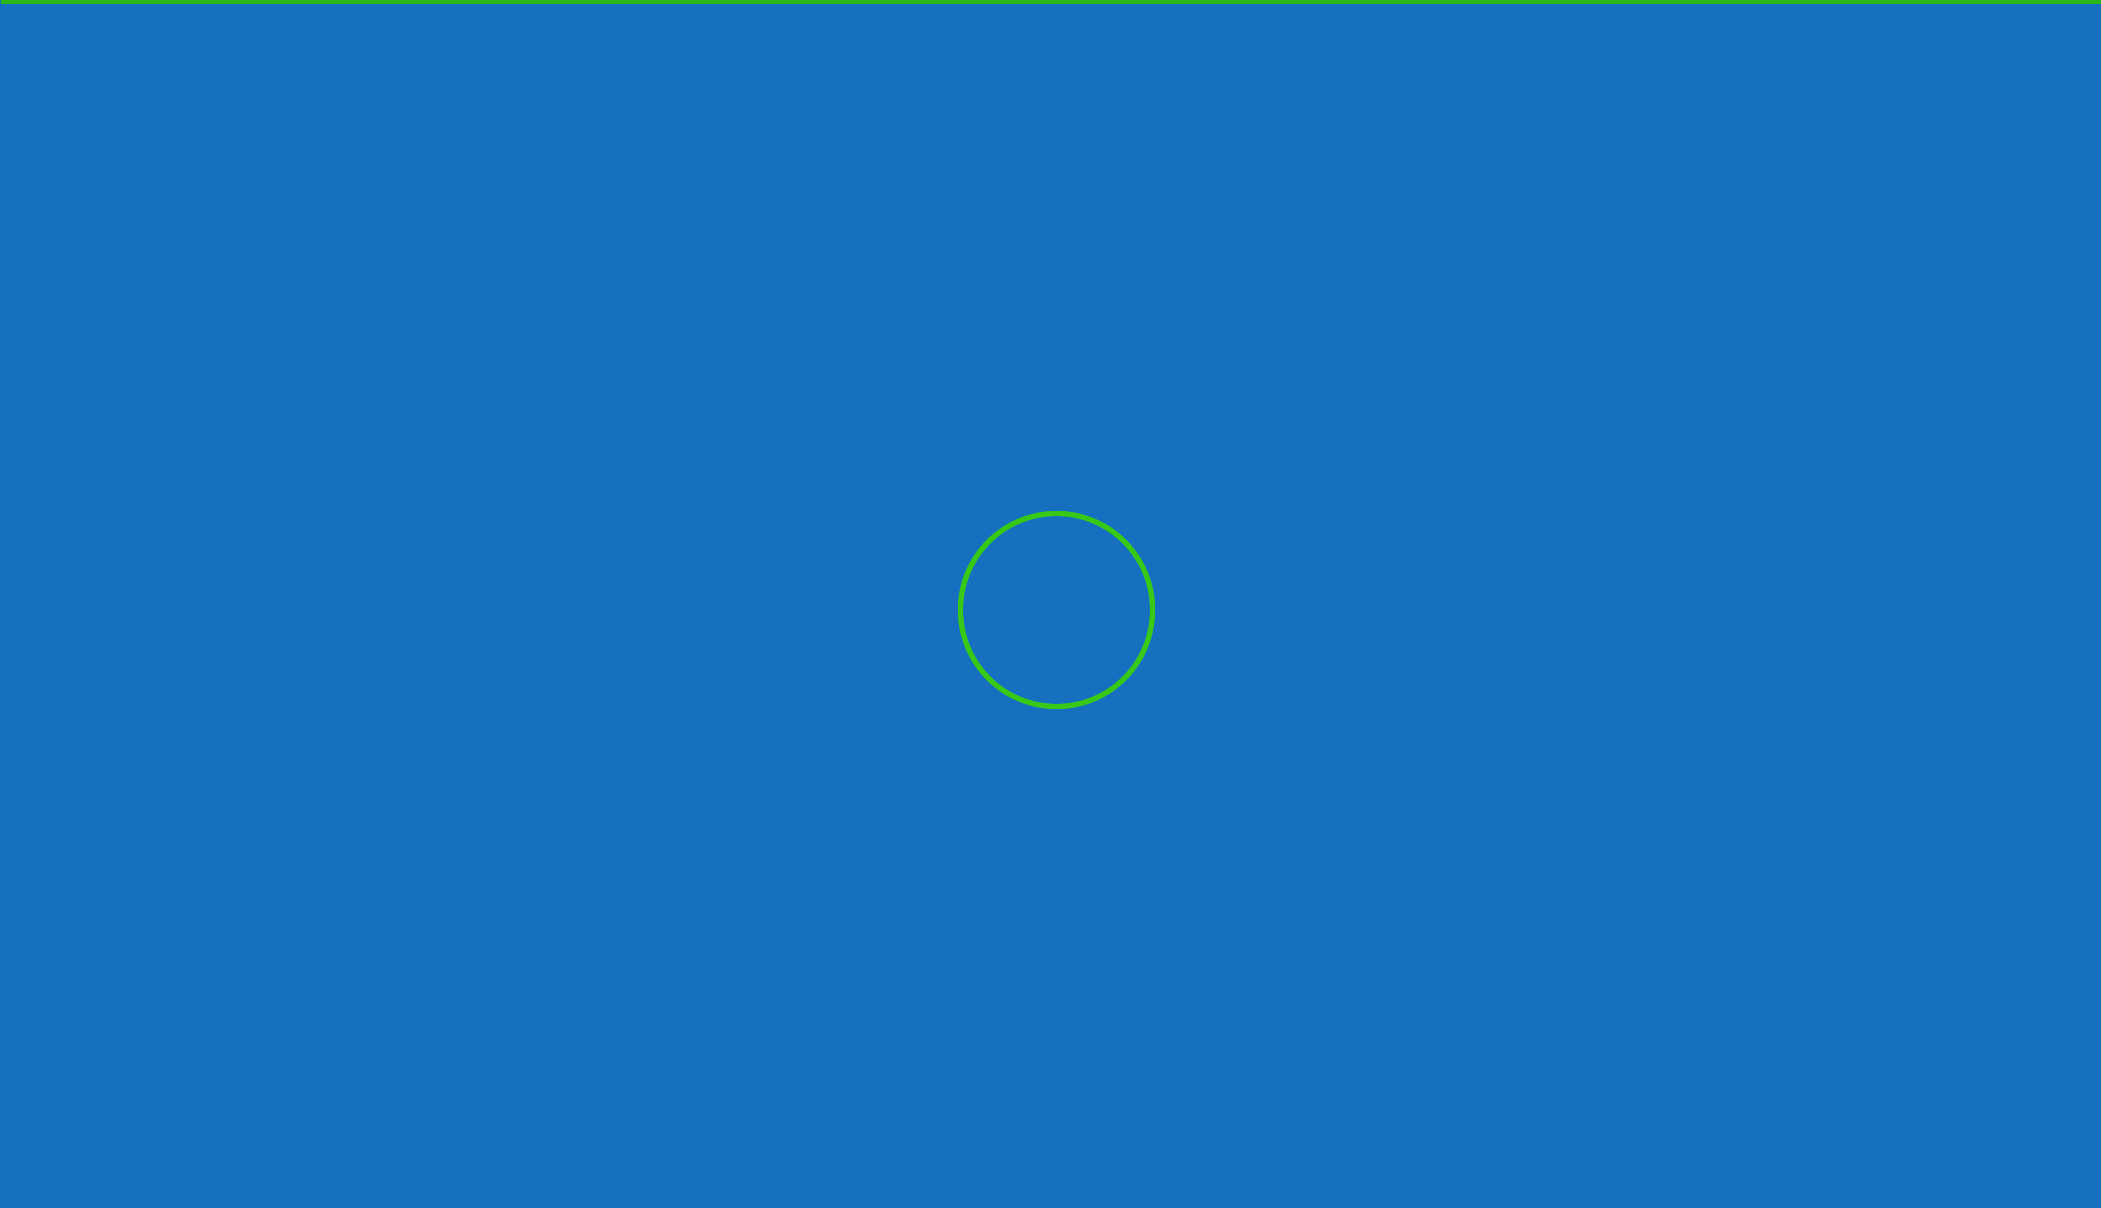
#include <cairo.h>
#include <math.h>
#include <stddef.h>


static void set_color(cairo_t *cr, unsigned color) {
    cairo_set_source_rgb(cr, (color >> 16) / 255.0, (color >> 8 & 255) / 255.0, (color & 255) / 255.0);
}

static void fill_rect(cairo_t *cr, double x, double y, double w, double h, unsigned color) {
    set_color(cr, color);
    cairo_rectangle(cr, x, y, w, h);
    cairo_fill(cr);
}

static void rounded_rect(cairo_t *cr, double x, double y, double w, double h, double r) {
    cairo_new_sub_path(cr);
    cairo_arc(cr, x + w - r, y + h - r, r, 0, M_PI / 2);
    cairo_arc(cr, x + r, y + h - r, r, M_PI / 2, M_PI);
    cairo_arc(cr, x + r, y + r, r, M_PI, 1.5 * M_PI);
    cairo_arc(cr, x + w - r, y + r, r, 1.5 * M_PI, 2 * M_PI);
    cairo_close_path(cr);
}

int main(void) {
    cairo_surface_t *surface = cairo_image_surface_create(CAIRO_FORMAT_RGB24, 2101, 1208);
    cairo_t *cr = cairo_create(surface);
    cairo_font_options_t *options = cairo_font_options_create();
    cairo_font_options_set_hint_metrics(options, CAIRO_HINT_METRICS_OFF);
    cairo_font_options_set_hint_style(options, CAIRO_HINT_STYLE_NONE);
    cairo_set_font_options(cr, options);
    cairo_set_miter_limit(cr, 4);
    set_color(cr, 0x1670BF);
    cairo_paint(cr);
    fill_rect(cr, 1, 0, 2100, 4, 0x2CB719);
    rounded_rect(cr, 960.5, 513.5, 192, 193, 96);
    set_color(cr, 0x37C916);
    cairo_set_line_width(cr, 5);
    cairo_stroke(cr);
    rounded_rect(cr, 960.5, 513.5, 192, 193, 96);
    cairo_stroke(cr);
    cairo_surface_write_to_png(surface, "output.png");
    cairo_font_options_destroy(options);
    cairo_destroy(cr);
    cairo_surface_destroy(surface);
    return 0;
}
